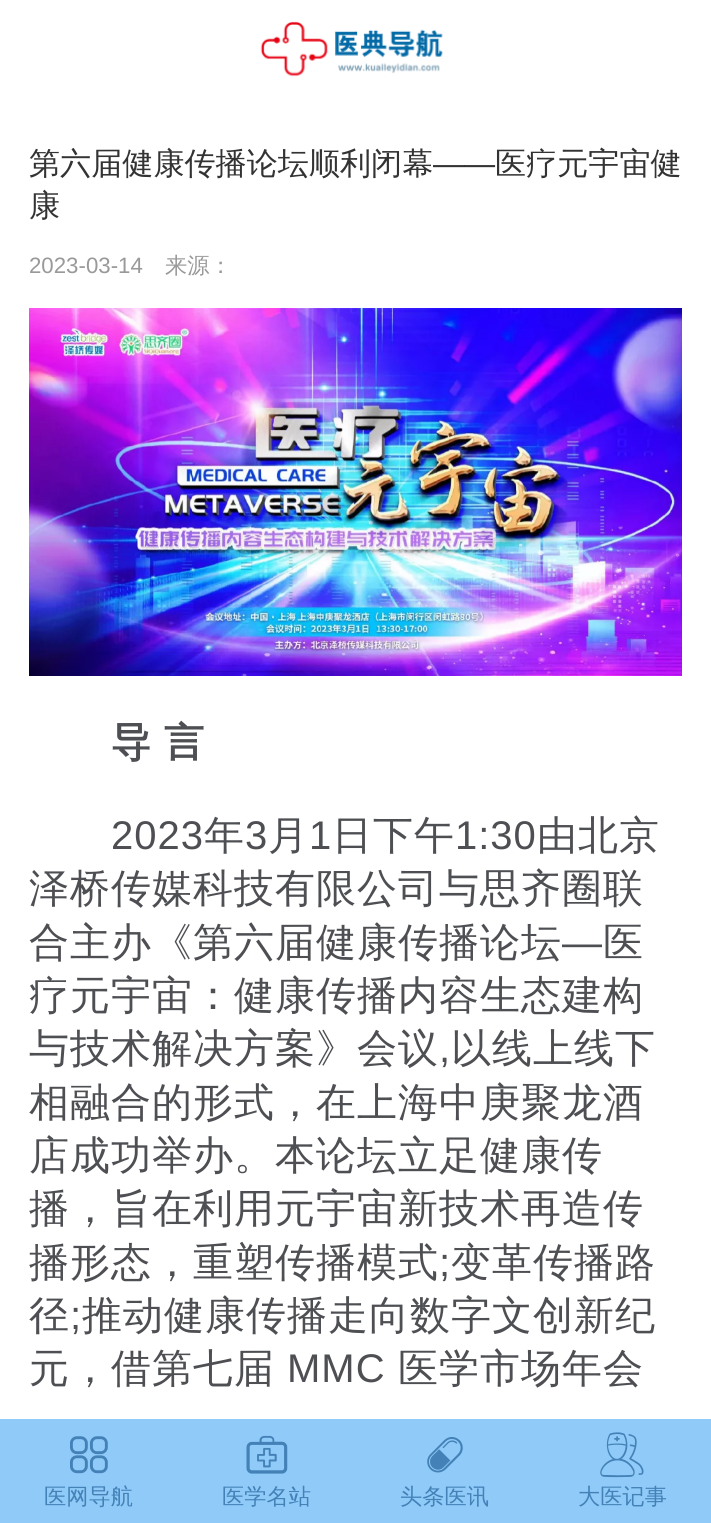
#include <cairo.h>
#include <math.h>
#include <stddef.h>


static void set_color(cairo_t *cr, unsigned color) {
    cairo_set_source_rgb(cr, (color >> 16) / 255.0, (color >> 8 & 255) / 255.0, (color & 255) / 255.0);
}

static void draw_text(cairo_t *cr, double x, double y, const char *s, const char *family, double size, int italic, int bold, unsigned color) {
    cairo_select_font_face(cr, family, italic ? CAIRO_FONT_SLANT_ITALIC : CAIRO_FONT_SLANT_NORMAL,
        bold ? CAIRO_FONT_WEIGHT_BOLD : CAIRO_FONT_WEIGHT_NORMAL);
    cairo_set_font_size(cr, size);
    set_color(cr, color);
    cairo_move_to(cr, x, y);
    cairo_show_text(cr, s);
}

static void draw_spaced(cairo_t *cr, double x, double y, const char *s, double letter, double word) {
    cairo_move_to(cr, x, y);
    while (*s) {
        char ch[5] = {0};
        int n = 0;
        do ch[n++] = *s++; while ((*s & 0xC0) == 0x80);
        cairo_show_text(cr, ch);
        cairo_rel_move_to(cr, letter + word * (*ch == ' '), 0);
    }
}

static void fill_rect(cairo_t *cr, double x, double y, double w, double h, unsigned color) {
    set_color(cr, color);
    cairo_rectangle(cr, x, y, w, h);
    cairo_fill(cr);
}

static void draw_image(cairo_t *cr, const char *path, double x, double y, double w, double h) {
    cairo_surface_t *image = cairo_image_surface_create_from_png(path);
    cairo_save(cr);
    cairo_set_source_surface(cr, image, x, y);
    cairo_rectangle(cr, x, y, w, h);
    cairo_fill(cr);
    cairo_restore(cr);
    cairo_surface_destroy(image);
}

int main(void) {
    cairo_surface_t *surface = cairo_image_surface_create(CAIRO_FORMAT_RGB24, 711, 1523);
    cairo_t *cr = cairo_create(surface);
    cairo_font_options_t *options = cairo_font_options_create();
    cairo_font_options_set_hint_metrics(options, CAIRO_HINT_METRICS_OFF);
    cairo_font_options_set_hint_style(options, CAIRO_HINT_STYLE_NONE);
    cairo_set_font_options(cr, options);
    cairo_set_miter_limit(cr, 4);
    set_color(cr, 0xFFFFFF);
    cairo_paint(cr);
    draw_image(cr, "assets/img1.png", 260, 21, 183, 56);
    draw_text(cr, 29, 174, "第六届健康传播论坛顺利闭幕", "WenQuanYi Zen Hei Medium", 31.1, 0, 0, 0x333333);
    draw_text(cr, 433, 174, "——", "Liberation Sans", 31.1, 0, 0, 0x333333);
    draw_text(cr, 495, 174, "医疗元宇宙健", "WenQuanYi Zen Hei Medium", 31.1, 0, 0, 0x333333);
    draw_text(cr, 29, 216, "康", "WenQuanYi Zen Hei Medium", 31.1, 0, 0, 0x333333);
    draw_text(cr, 29, 273, "2023-03-14", "Liberation Sans", 22.25, 0, 0, 0x999999);
    draw_text(cr, 165, 273, "来源：", "WenQuanYi Zen Hei Medium", 22.25, 0, 0, 0x999999);
    draw_image(cr, "assets/img2.png", 29, 308, 653, 368);
    cairo_select_font_face(cr, "WenQuanYi Zen Hei", CAIRO_FONT_SLANT_NORMAL, CAIRO_FONT_WEIGHT_BOLD);
    cairo_set_font_size(cr, 40);
    set_color(cr, 0x4D4F53);
    draw_spaced(cr, 111, 756, "导 言", 1, -1);
    cairo_select_font_face(cr, "Liberation Sans", CAIRO_FONT_SLANT_NORMAL, CAIRO_FONT_WEIGHT_NORMAL);
    draw_spaced(cr, 111, 849, "2023", 1, 0);
    cairo_select_font_face(cr, "WenQuanYi Zen Hei Medium", CAIRO_FONT_SLANT_NORMAL, CAIRO_FONT_WEIGHT_NORMAL);
    draw_spaced(cr, 204, 849, "年", 1, 0);
    cairo_select_font_face(cr, "Liberation Sans", CAIRO_FONT_SLANT_NORMAL, CAIRO_FONT_WEIGHT_NORMAL);
    draw_spaced(cr, 245, 849, "3", 1, 0);
    cairo_select_font_face(cr, "WenQuanYi Zen Hei Medium", CAIRO_FONT_SLANT_NORMAL, CAIRO_FONT_WEIGHT_NORMAL);
    draw_spaced(cr, 268, 849, "月", 1, 0);
    cairo_select_font_face(cr, "Liberation Sans", CAIRO_FONT_SLANT_NORMAL, CAIRO_FONT_WEIGHT_NORMAL);
    draw_spaced(cr, 309, 849, "1", 1, 0);
    cairo_select_font_face(cr, "WenQuanYi Zen Hei Medium", CAIRO_FONT_SLANT_NORMAL, CAIRO_FONT_WEIGHT_NORMAL);
    draw_spaced(cr, 332, 849, "日下午", 1, 0);
    cairo_select_font_face(cr, "Liberation Sans", CAIRO_FONT_SLANT_NORMAL, CAIRO_FONT_WEIGHT_NORMAL);
    draw_spaced(cr, 455, 849, "1:30", 1, 0);
    cairo_select_font_face(cr, "WenQuanYi Zen Hei Medium", CAIRO_FONT_SLANT_NORMAL, CAIRO_FONT_WEIGHT_NORMAL);
    draw_spaced(cr, 537, 849, "由北京", 1, 0);
    draw_spaced(cr, 29, 902, "泽桥传媒科技有限公司与思齐圈联", 1, 0);
    draw_spaced(cr, 29, 956, "合主办《第六届健康传播论坛", 1, 0);
    cairo_select_font_face(cr, "Liberation Sans", CAIRO_FONT_SLANT_NORMAL, CAIRO_FONT_WEIGHT_NORMAL);
    draw_spaced(cr, 562, 956, "—", 1, 0);
    cairo_select_font_face(cr, "WenQuanYi Zen Hei Medium", CAIRO_FONT_SLANT_NORMAL, CAIRO_FONT_WEIGHT_NORMAL);
    draw_spaced(cr, 603, 956, "医", 1, 0);
    draw_spaced(cr, 29, 1009, "疗元宇宙：健康传播内容生态建构", 1, 0);
    draw_spaced(cr, 29, 1062, "与技术解决方案》会议", 1, 0);
    cairo_select_font_face(cr, "Liberation Sans", CAIRO_FONT_SLANT_NORMAL, CAIRO_FONT_WEIGHT_NORMAL);
    draw_spaced(cr, 439, 1062, ",", 1, 0);
    cairo_select_font_face(cr, "WenQuanYi Zen Hei Medium", CAIRO_FONT_SLANT_NORMAL, CAIRO_FONT_WEIGHT_NORMAL);
    draw_spaced(cr, 451, 1062, "以线上线下", 1, 0);
    draw_spaced(cr, 29, 1116, "相融合的形式，在上海中庚聚龙酒", 1, 0);
    draw_spaced(cr, 29, 1169, "店成功举办。本论坛立足健康传", 1, 0);
    draw_spaced(cr, 29, 1222, "播，旨在利用元宇宙新技术再造传", 1, 0);
    draw_spaced(cr, 29, 1276, "播形态，重塑传播模式", 1, 0);
    cairo_select_font_face(cr, "Liberation Sans", CAIRO_FONT_SLANT_NORMAL, CAIRO_FONT_WEIGHT_NORMAL);
    draw_spaced(cr, 439, 1276, ";", 1, 0);
    cairo_select_font_face(cr, "WenQuanYi Zen Hei Medium", CAIRO_FONT_SLANT_NORMAL, CAIRO_FONT_WEIGHT_NORMAL);
    draw_spaced(cr, 451, 1276, "变革传播路", 1, 0);
    draw_spaced(cr, 29, 1329, "径", 1, 0);
    cairo_select_font_face(cr, "Liberation Sans", CAIRO_FONT_SLANT_NORMAL, CAIRO_FONT_WEIGHT_NORMAL);
    draw_spaced(cr, 70, 1329, ";", 1, 0);
    cairo_select_font_face(cr, "WenQuanYi Zen Hei Medium", CAIRO_FONT_SLANT_NORMAL, CAIRO_FONT_WEIGHT_NORMAL);
    draw_spaced(cr, 82, 1329, "推动健康传播走向数字文创新纪", 1, 0);
    draw_spaced(cr, 29, 1382, "元，借第七届", 1, 0);
    cairo_select_font_face(cr, "Liberation Sans", CAIRO_FONT_SLANT_NORMAL, CAIRO_FONT_WEIGHT_NORMAL);
    draw_spaced(cr, 287, 1382, "MMC", 1, 0);
    cairo_select_font_face(cr, "WenQuanYi Zen Hei Medium", CAIRO_FONT_SLANT_NORMAL, CAIRO_FONT_WEIGHT_NORMAL);
    draw_spaced(cr, 398, 1382, "医学市场年会", 1, 0);
    fill_rect(cr, 0, 1419, 711, 104, 0x90CAF8);
    draw_image(cr, "assets/img3.png", 70, 1436, 38, 38);
    draw_text(cr, 44, 1504, "医网导航", "WenQuanYi Zen Hei Medium", 22.25, 0, 0, 0x4381B7);
    draw_image(cr, "assets/img4.png", 246, 1435, 42, 39);
    draw_text(cr, 222, 1504, "医学名站", "WenQuanYi Zen Hei Medium", 22.25, 0, 0, 0x4381B7);
    draw_image(cr, "assets/img5.png", 427, 1437, 36, 36);
    draw_text(cr, 400, 1504, "头条医讯", "WenQuanYi Zen Hei Medium", 22.25, 0, 0, 0x4381B7);
    draw_image(cr, "assets/img6.png", 600, 1432, 44, 46);
    draw_text(cr, 578, 1504, "大医记事", "WenQuanYi Zen Hei Medium", 22.25, 0, 0, 0x4381B7);
    cairo_surface_write_to_png(surface, "output.png");
    cairo_font_options_destroy(options);
    cairo_destroy(cr);
    cairo_surface_destroy(surface);
    return 0;
}
